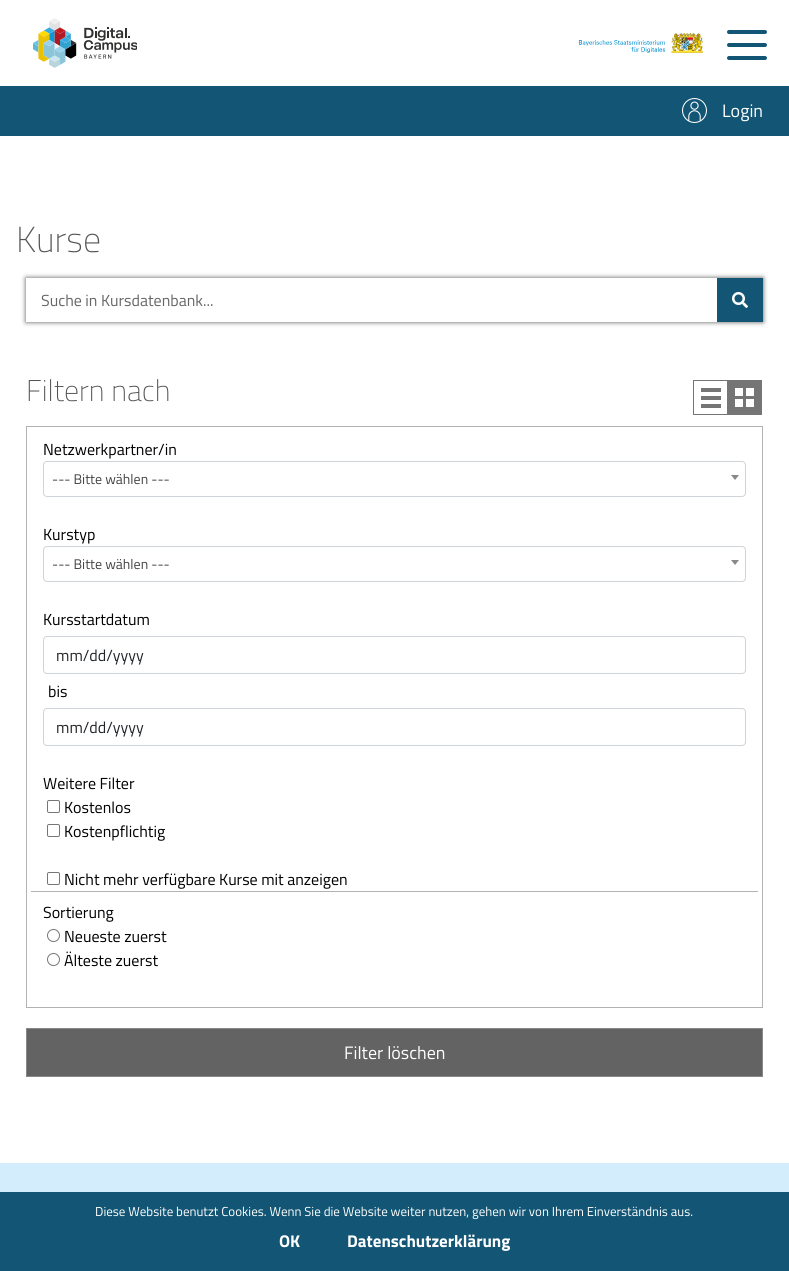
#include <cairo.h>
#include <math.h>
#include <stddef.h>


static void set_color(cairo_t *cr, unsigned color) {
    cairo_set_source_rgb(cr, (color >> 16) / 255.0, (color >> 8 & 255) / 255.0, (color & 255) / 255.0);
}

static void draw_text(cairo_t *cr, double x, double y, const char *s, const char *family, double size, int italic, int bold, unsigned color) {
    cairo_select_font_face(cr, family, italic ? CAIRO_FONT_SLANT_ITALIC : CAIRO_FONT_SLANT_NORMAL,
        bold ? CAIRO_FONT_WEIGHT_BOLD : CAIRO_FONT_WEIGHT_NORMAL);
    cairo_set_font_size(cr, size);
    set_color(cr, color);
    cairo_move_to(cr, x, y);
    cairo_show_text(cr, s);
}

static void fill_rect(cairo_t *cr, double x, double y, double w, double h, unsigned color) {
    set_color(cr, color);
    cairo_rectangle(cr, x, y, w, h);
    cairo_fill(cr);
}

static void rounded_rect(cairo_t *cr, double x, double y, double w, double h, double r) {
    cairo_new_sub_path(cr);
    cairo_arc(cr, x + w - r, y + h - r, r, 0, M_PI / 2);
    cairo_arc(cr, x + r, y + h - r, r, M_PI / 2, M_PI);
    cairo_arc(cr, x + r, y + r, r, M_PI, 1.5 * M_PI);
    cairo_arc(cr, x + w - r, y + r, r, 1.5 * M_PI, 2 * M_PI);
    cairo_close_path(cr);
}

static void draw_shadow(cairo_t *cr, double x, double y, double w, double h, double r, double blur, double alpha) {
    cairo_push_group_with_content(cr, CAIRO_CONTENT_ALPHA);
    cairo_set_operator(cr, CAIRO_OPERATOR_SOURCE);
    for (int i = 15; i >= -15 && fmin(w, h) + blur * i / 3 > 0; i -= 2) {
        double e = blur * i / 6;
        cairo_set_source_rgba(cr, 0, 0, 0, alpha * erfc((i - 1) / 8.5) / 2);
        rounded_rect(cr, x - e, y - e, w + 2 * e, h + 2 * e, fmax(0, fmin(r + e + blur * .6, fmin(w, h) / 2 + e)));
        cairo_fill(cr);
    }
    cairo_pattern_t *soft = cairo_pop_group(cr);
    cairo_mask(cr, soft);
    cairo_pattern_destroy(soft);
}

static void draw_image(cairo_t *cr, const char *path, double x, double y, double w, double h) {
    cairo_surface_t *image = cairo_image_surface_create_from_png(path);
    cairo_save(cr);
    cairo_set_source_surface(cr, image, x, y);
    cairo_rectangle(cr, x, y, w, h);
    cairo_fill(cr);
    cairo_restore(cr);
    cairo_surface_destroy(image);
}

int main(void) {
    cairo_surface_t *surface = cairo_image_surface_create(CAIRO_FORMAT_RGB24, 789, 1271);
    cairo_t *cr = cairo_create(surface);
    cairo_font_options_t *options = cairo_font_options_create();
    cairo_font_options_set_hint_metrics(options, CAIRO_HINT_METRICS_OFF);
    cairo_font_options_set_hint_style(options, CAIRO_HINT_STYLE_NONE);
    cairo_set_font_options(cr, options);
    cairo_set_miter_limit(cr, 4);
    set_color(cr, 0xFFFFFF);
    cairo_paint(cr);
    draw_image(cr, "assets/img1.png", 33, 18, 104, 50);
    draw_image(cr, "assets/img2.png", 579, 33, 124, 20);
    set_color(cr, 0x125574);
    rounded_rect(cr, 727, 43, 40, 4, 2);
    cairo_fill(cr);
    rounded_rect(cr, 727, 30, 40, 4, 2);
    cairo_fill(cr);
    rounded_rect(cr, 727, 56, 40, 4, 2);
    cairo_fill(cr);
    fill_rect(cr, 0, 86, 789, 50, 0x125574);
    draw_image(cr, "assets/img3.png", 682, 98, 25, 25);
    draw_text(cr, 722, 117, "Login", "Titillium Web", 18, 0, 0, 0xFFFFFF);
    draw_text(cr, 16, 252, "Kurse", "Titillium Web ExtraLight", 36, 0, 0, 0x545454);
    cairo_save(cr);
    cairo_set_fill_rule(cr, CAIRO_FILL_RULE_EVEN_ODD);
    cairo_new_path(cr);
    cairo_move_to(cr, 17, 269);
    cairo_line_to(cr, 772, 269);
    cairo_line_to(cr, 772, 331);
    cairo_line_to(cr, 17, 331);
    cairo_close_path(cr);
    cairo_move_to(cr, 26, 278);
    cairo_line_to(cr, 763, 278);
    cairo_line_to(cr, 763, 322);
    cairo_line_to(cr, 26, 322);
    cairo_close_path(cr);
    cairo_clip(cr);
    set_color(cr, 0x565656);
    draw_shadow(cr, 26, 278, 737, 44, 0, 2.5, 1);
    cairo_restore(cr);
    draw_text(cr, 41, 306, "Suche in Kursdatenbank...", "Titillium Web", 16, 0, 0, 0x666666);
    fill_rect(cr, 717, 278, 46, 44, 0x125574);
    draw_image(cr, "assets/img4.png", 732, 292, 16, 16);
    draw_text(cr, 26, 401, "Filtern nach", "Titillium Web ExtraLight", 30, 0, 0, 0x545454);
    cairo_rectangle(cr, 693.5, 380.5, 34, 34);
    set_color(cr, 0x757575);
    cairo_set_line_width(cr, 1);
    cairo_stroke(cr);
    fill_rect(cr, 728, 380, 34, 35, 0x757575);
    fill_rect(cr, 701, 388, 20, 4, 0x757575);
    fill_rect(cr, 735, 388, 8, 8, 0xFFFFFF);
    fill_rect(cr, 746, 388, 8, 8, 0xFFFFFF);
    fill_rect(cr, 701, 396, 20, 4, 0x757575);
    fill_rect(cr, 701, 404, 20, 4, 0x757575);
    fill_rect(cr, 735, 399, 8, 8, 0xFFFFFF);
    fill_rect(cr, 746, 399, 8, 8, 0xFFFFFF);
    cairo_rectangle(cr, 26.5, 426.5, 736, 581);
    set_color(cr, 0xB2B2B2);
    cairo_stroke(cr);
    draw_text(cr, 43, 455, "Netzwerkpartner/in", "Titillium Web", 16, 0, 0, 0x000000);
    rounded_rect(cr, 43.5, 461.5, 702, 35, 3.5);
    set_color(cr, 0xCED4DA);
    cairo_stroke(cr);
    draw_text(cr, 52, 484, "--- Bitte wählen ---", "Titillium Web", 14, 0, 0, 0x444444);
    set_color(cr, 0x888888);
    cairo_new_path(cr);
    cairo_move_to(cr, 731, 475);
    cairo_line_to(cr, 739, 475);
    cairo_line_to(cr, 735, 480);
    cairo_close_path(cr);
    cairo_fill(cr);
    draw_text(cr, 43, 540, "Kurstyp", "Titillium Web", 16, 0, 0, 0x000000);
    rounded_rect(cr, 43.5, 546.5, 702, 35, 3.5);
    set_color(cr, 0xCED4DA);
    cairo_stroke(cr);
    draw_text(cr, 52, 569, "--- Bitte wählen ---", "Titillium Web", 14, 0, 0, 0x444444);
    set_color(cr, 0x888888);
    cairo_new_path(cr);
    cairo_move_to(cr, 731, 560);
    cairo_line_to(cr, 739, 560);
    cairo_line_to(cr, 735, 565);
    cairo_close_path(cr);
    cairo_fill(cr);
    draw_text(cr, 43, 625, "Kursstartdatum", "Titillium Web", 16, 0, 0, 0x000000);
    rounded_rect(cr, 43.5, 636.5, 702, 37, 3.5);
    set_color(cr, 0xCED4DA);
    cairo_stroke(cr);
    draw_text(cr, 56, 661, "mm/dd/yyyy", "Titillium Web", 16, 0, 0, 0x212529);
    draw_text(cr, 48, 697, "bis", "Titillium Web", 16, 0, 0, 0x000000);
    rounded_rect(cr, 43.5, 708.5, 702, 37, 3.5);
    set_color(cr, 0xCED4DA);
    cairo_stroke(cr);
    draw_text(cr, 56, 733, "mm/dd/yyyy", "Titillium Web", 16, 0, 0, 0x212529);
    draw_text(cr, 43, 789, "Weitere Filter", "Titillium Web", 16, 0, 0, 0x000000);
    rounded_rect(cr, 47.5, 800.5, 12, 12, 1.5);
    set_color(cr, 0x767676);
    cairo_stroke(cr);
    draw_text(cr, 64, 813, "Kostenlos", "Titillium Web", 16, 0, 0, 0x000000);
    rounded_rect(cr, 47.5, 824.5, 12, 12, 1.5);
    set_color(cr, 0x767676);
    cairo_stroke(cr);
    draw_text(cr, 64, 837, "Kostenpflichtig", "Titillium Web", 16, 0, 0, 0x000000);
    rounded_rect(cr, 47.5, 872.5, 12, 12, 1.5);
    set_color(cr, 0x767676);
    cairo_stroke(cr);
    draw_text(cr, 64, 885, "Nicht mehr verfügbare Kurse mit anzeigen", "Titillium Web", 16, 0, 0, 0x000000);
    fill_rect(cr, 31, 891, 727, 1, 0xB2B2B2);
    draw_text(cr, 43, 918, "Sortierung", "Titillium Web", 16, 0, 0, 0x000000);
    cairo_new_path(cr);
    cairo_arc(cr, 53.5, 935.5, 6, 0, 2 * M_PI);
    set_color(cr, 0x767676);
    cairo_stroke(cr);
    draw_text(cr, 64, 942, "Neueste zuerst", "Titillium Web", 16, 0, 0, 0x000000);
    cairo_new_path(cr);
    cairo_arc(cr, 53.5, 959.5, 6, 0, 2 * M_PI);
    set_color(cr, 0x767676);
    cairo_stroke(cr);
    draw_text(cr, 64, 966, "Älteste zuerst", "Titillium Web", 16, 0, 0, 0x000000);
    set_color(cr, 0x636363);
    cairo_rectangle(cr, 26.5, 1028.5, 736, 48);
    cairo_fill_preserve(cr);
    set_color(cr, 0x888888);
    cairo_stroke(cr);
    draw_text(cr, 344, 1059, "Filter löschen", "Titillium Web", 18, 0, 0, 0xFFFFFF);
    fill_rect(cr, 0, 1163, 789, 29, 0xD4EDFC);
    fill_rect(cr, 0, 1192, 789, 79, 0x125574);
    draw_text(cr, 95, 1216, "Diese Website benutzt Cookies. Wenn Sie die Website weiter nutzen, gehen wir von Ihrem Einverständnis aus.", "Titillium Web", 13, 0, 0, 0xFFFFFF);
    draw_text(cr, 279, 1247, "OK", "Titillium Web", 17, 0, 1, 0xFFFFFF);
    draw_text(cr, 347, 1247, "Datenschutzerklärung", "Titillium Web", 17, 0, 1, 0xFFFFFF);
    cairo_surface_write_to_png(surface, "output.png");
    cairo_font_options_destroy(options);
    cairo_destroy(cr);
    cairo_surface_destroy(surface);
    return 0;
}
